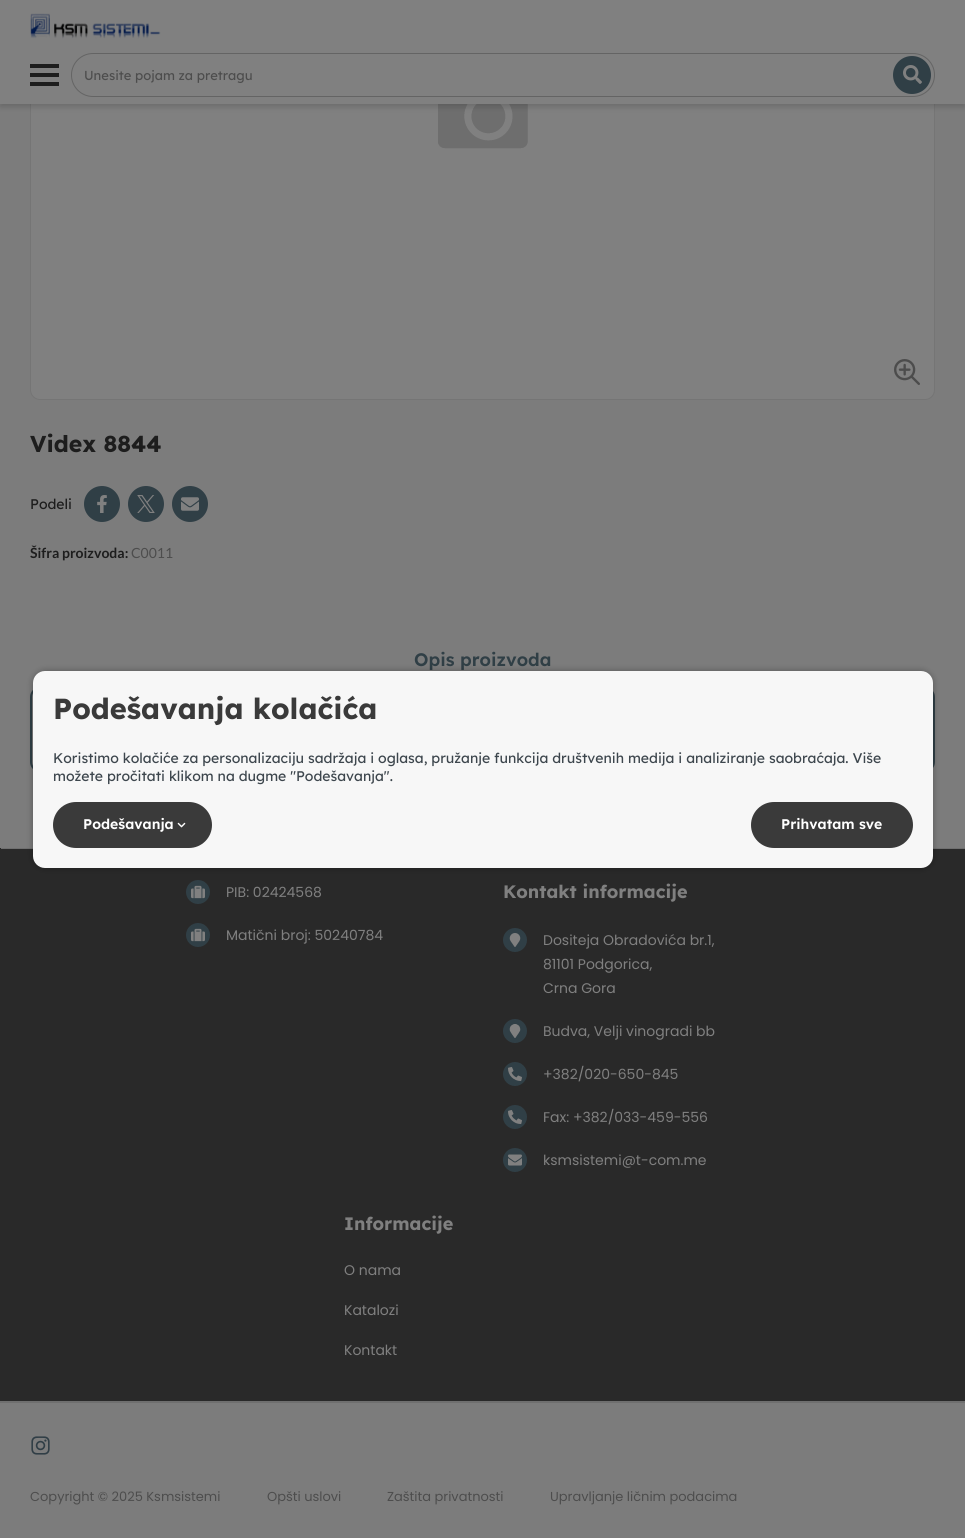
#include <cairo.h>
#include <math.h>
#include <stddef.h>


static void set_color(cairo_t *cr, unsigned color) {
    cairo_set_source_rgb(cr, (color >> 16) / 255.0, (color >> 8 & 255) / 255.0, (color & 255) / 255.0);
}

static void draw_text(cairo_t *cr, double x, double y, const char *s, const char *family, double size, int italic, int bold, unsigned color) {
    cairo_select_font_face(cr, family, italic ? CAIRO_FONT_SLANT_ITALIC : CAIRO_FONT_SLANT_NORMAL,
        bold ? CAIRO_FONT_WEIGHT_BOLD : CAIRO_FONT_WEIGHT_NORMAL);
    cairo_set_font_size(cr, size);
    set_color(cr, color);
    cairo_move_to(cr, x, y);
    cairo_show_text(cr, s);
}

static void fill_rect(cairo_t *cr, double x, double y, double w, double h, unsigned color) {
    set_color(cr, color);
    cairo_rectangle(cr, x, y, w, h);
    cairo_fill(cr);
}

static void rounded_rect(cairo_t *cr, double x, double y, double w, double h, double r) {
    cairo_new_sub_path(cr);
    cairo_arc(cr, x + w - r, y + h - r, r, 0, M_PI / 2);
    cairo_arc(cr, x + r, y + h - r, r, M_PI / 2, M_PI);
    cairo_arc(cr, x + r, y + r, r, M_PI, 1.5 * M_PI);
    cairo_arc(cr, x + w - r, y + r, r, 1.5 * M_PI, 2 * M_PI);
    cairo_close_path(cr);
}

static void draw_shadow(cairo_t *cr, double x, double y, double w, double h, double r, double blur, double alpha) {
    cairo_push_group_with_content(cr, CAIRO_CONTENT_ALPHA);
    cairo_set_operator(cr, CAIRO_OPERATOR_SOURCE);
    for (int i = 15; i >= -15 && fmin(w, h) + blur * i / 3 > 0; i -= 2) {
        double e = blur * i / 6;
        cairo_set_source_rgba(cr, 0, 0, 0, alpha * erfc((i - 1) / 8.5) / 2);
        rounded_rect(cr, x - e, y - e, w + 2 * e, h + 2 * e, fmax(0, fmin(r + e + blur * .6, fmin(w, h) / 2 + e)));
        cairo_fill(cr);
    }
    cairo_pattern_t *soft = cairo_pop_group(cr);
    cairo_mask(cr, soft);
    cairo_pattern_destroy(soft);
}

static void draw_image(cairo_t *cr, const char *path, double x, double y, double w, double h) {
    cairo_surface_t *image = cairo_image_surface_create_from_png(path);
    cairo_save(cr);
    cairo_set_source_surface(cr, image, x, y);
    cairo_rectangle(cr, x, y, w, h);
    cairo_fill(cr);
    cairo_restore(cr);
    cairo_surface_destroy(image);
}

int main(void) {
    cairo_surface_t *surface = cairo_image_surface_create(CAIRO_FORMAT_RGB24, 965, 1538);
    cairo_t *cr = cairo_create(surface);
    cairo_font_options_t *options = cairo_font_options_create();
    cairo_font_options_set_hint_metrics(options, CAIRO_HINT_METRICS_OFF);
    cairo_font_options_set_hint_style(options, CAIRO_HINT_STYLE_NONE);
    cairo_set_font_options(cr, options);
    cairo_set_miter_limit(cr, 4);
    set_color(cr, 0x7C7C7C);
    cairo_paint(cr);
    set_color(cr, 0x808080);
    rounded_rect(cr, 30.5, -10.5, 904, 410, 9.5);
    cairo_fill_preserve(cr);
    set_color(cr, 0x757575);
    cairo_set_line_width(cr, 1);
    cairo_stroke(cr);
    draw_image(cr, "assets/img4.png", 438, 104, 90, 45);
    set_color(cr, 0x000000);
    draw_shadow(cr, 0, 3, 965, 104, 0, 3, 0.16);
    fill_rect(cr, 0, 0, 965, 104, 0x808080);
    draw_image(cr, "assets/img1.png", 30, 13, 131, 26);
    draw_image(cr, "assets/img2.png", 30, 64, 29, 22);
    rounded_rect(cr, 71.5, 53.5, 863, 43, 21.5);
    set_color(cr, 0x646464);
    cairo_stroke(cr);
    draw_text(cr, 84, 80, "Unesite pojam za pretragu", "Lexend Deca", 13, 0, 0, 0x4D4D4D);
    set_color(cr, 0x303F46);
    cairo_new_path(cr);
    cairo_arc(cr, 912, 75, 19, 0, 2 * M_PI);
    cairo_fill(cr);
    draw_image(cr, "assets/img3.png", 903, 65, 19, 19);
    draw_image(cr, "assets/img5.png", 894, 359, 26, 26);
    draw_text(cr, 30, 452, "Videx 8844", "Lexend Deca", 23, 0, 1, 0x1D1D1D);
    draw_text(cr, 30, 509, "Podeli", "Lexend Deca", 14, 0, 0, 0x1D1D1D);
    set_color(cr, 0x303F46);
    cairo_new_path(cr);
    cairo_arc(cr, 102, 504, 18, 0, 2 * M_PI);
    cairo_fill(cr);
    draw_image(cr, "assets/img6.png", 97, 495, 10, 18);
    cairo_arc(cr, 146, 504, 18, 0, 2 * M_PI);
    cairo_fill(cr);
    draw_image(cr, "assets/img7.png", 137, 495, 18, 18);
    cairo_arc(cr, 190, 504, 18, 0, 2 * M_PI);
    cairo_fill(cr);
    draw_image(cr, "assets/img8.png", 181, 497, 18, 14);
    draw_text(cr, 30, 558, "Šifra proizvoda:", "Lato", 14, 0, 1, 0x1D1D1D);
    draw_text(cr, 131, 558, "C0011", "Lato", 14, 0, 0, 0x4D4D4D);
    draw_text(cr, 414, 666, "Opis proizvoda", "Lexend Deca SemiBold", 18, 0, 0, 0x303F46);
    set_color(cr, 0x808080);
    rounded_rect(cr, 31, 688, 903, 83, 9);
    cairo_fill_preserve(cr);
    set_color(cr, 0x303F46);
    cairo_set_line_width(cr, 2);
    cairo_stroke(cr);
    fill_rect(cr, 0, 848, 965, 553, 0x292929);
    fill_rect(cr, 1, 848, 964, 1, 0x6F6F6F);
    set_color(cr, 0x303F46);
    cairo_arc(cr, 198, 892, 12, 0, 2 * M_PI);
    cairo_fill(cr);
    draw_image(cr, "assets/img9.png", 191, 885, 14, 14);
    draw_text(cr, 226, 897, "PIB: 02424568", "Poppins", 14, 0, 0, 0x808080);
    set_color(cr, 0x303F46);
    cairo_new_path(cr);
    cairo_arc(cr, 198, 935, 12, 0, 2 * M_PI);
    cairo_fill(cr);
    draw_image(cr, "assets/img9.png", 191, 928, 14, 14);
    draw_text(cr, 226, 940, "Matični broj: 50240784", "Poppins", 14, 0, 0, 0x808080);
    draw_text(cr, 503, 898, "Kontakt informacije", "Lexend Deca", 18, 0, 1, 0x808080);
    set_color(cr, 0x303F46);
    cairo_new_path(cr);
    cairo_arc(cr, 515, 940, 12, 0, 2 * M_PI);
    cairo_fill(cr);
    draw_image(cr, "assets/img10.png", 509, 933, 12, 14);
    draw_text(cr, 543, 945, "Dositeja Obradovića br.1,", "Poppins", 14, 0, 0, 0x808080);
    draw_text(cr, 543, 969, "81101 Podgorica,", "Poppins", 14, 0, 0, 0x808080);
    draw_text(cr, 543, 993, "Crna Gora", "Poppins", 14, 0, 0, 0x808080);
    set_color(cr, 0x303F46);
    cairo_new_path(cr);
    cairo_arc(cr, 515, 1031, 12, 0, 2 * M_PI);
    cairo_fill(cr);
    draw_image(cr, "assets/img11.png", 509, 1024, 12, 14);
    draw_text(cr, 543, 1036, "Budva, Velji vinogradi bb", "Poppins", 14, 0, 0, 0x808080);
    set_color(cr, 0x303F46);
    cairo_new_path(cr);
    cairo_arc(cr, 515, 1074, 12, 0, 2 * M_PI);
    cairo_fill(cr);
    draw_text(cr, 543, 1079, "+382/020-650-845", "Poppins", 14, 0, 0, 0x808080);
    draw_image(cr, "assets/img12.png", 508, 1067, 14, 14);
    set_color(cr, 0x303F46);
    cairo_arc(cr, 515, 1117, 12, 0, 2 * M_PI);
    cairo_fill(cr);
    draw_text(cr, 543, 1122, "Fax: +382/033-459-556", "Poppins", 14, 0, 0, 0x808080);
    draw_image(cr, "assets/img13.png", 508, 1110, 14, 14);
    set_color(cr, 0x303F46);
    cairo_arc(cr, 515, 1160, 12, 0, 2 * M_PI);
    cairo_fill(cr);
    draw_image(cr, "assets/img14.png", 508, 1154, 14, 12);
    draw_text(cr, 543, 1165, "ksmsistemi@t-com.me", "Poppins", 14, 0, 0, 0x808080);
    draw_text(cr, 344, 1230, "Informacije", "Lexend Deca", 18, 0, 1, 0x808080);
    draw_text(cr, 344, 1275, "O nama", "Poppins", 14, 0, 0, 0x808080);
    draw_text(cr, 344, 1315, "Katalozi", "Poppins", 14, 0, 0, 0x808080);
    draw_text(cr, 344, 1355, "Kontakt", "Poppins", 14, 0, 0, 0x808080);
    fill_rect(cr, 0, 1401, 965, 2, 0x6F6F6F);
    draw_image(cr, "assets/img15.png", 31, 1436, 19, 19);
    draw_text(cr, 30, 1501, "Copyright © 2025 Ksmsistemi", "Poppins", 13, 0, 0, 0x4D4D4D);
    draw_text(cr, 267, 1501, "Opšti uslovi", "Poppins", 13, 0, 0, 0x4D4D4D);
    draw_text(cr, 387, 1501, "Zaštita privatnosti", "Poppins", 13, 0, 0, 0x4D4D4D);
    draw_text(cr, 550, 1501, "Upravljanje ličnim podacima", "Poppins", 13, 0, 0, 0x4D4D4D);
    set_color(cr, 0x000000);
    draw_shadow(cr, 33, 671, 900, 197, 12, 3.5, 0.3);
    set_color(cr, 0xF7F7F7);
    rounded_rect(cr, 33, 671, 900, 197, 12);
    cairo_fill(cr);
    draw_text(cr, 53, 719, "Podešavanja kolačića", "Lexend Deca", 29, 0, 1, 0x3A3A3A);
    draw_text(cr, 53, 763, "Koristimo kolačiće za personalizaciju sadržaja i oglasa, pružanje funkcija društvenih medija i analiziranje saobraćaja. Više", "Lexend Deca", 14, 0, 0, 0x3D464D);
    draw_text(cr, 53, 781, "možete pročitati klikom na dugme \"Podešavanja\".", "Lexend Deca", 14, 0, 0, 0x3D464D);
    set_color(cr, 0x3A3A3A);
    rounded_rect(cr, 53, 802, 159, 46, 23);
    cairo_fill(cr);
    draw_text(cr, 83, 829, "Podešavanja", "Lexend Deca SemiBold", 14, 0, 0, 0xFFFFFF);
    draw_image(cr, "assets/img16.png", 177, 822, 9, 6);
    set_color(cr, 0x3A3A3A);
    rounded_rect(cr, 751, 802, 162, 46, 23);
    cairo_fill(cr);
    draw_text(cr, 781, 829, "Prihvatam sve", "Lexend Deca SemiBold", 14, 0, 0, 0xFFFFFF);
    cairo_surface_write_to_png(surface, "output.png");
    cairo_font_options_destroy(options);
    cairo_destroy(cr);
    cairo_surface_destroy(surface);
    return 0;
}
